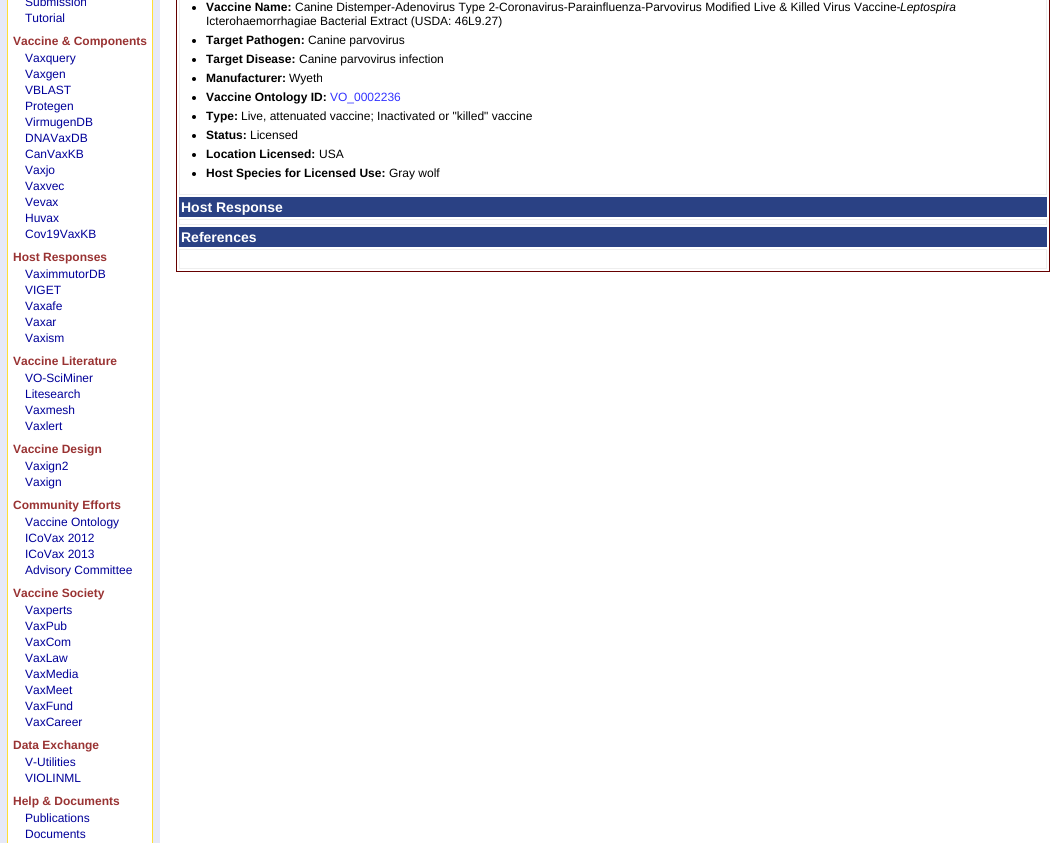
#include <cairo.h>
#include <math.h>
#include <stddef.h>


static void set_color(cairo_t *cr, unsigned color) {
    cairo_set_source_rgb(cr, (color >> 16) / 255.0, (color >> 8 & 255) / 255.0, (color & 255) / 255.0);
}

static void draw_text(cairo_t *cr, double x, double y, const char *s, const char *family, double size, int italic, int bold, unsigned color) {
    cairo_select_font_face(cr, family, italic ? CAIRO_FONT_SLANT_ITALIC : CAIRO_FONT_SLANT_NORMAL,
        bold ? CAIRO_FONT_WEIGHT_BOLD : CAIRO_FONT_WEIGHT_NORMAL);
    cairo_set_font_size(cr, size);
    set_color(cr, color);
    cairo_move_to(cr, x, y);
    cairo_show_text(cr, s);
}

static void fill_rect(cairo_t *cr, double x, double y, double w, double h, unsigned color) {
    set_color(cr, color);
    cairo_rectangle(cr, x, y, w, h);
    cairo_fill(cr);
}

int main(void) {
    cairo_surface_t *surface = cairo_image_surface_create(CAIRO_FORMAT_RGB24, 1060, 843);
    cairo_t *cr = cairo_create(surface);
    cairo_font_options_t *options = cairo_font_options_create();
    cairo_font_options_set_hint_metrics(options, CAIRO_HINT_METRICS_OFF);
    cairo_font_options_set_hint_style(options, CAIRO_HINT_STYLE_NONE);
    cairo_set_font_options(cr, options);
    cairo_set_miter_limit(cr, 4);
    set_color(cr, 0xFFFFFF);
    cairo_paint(cr);
    fill_rect(cr, 0, 0, 160, 843, 0xE6E9F7);
    set_color(cr, 0xFFFFFF);
    cairo_rectangle(cr, 7.5, -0.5, 145, 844);
    cairo_fill_preserve(cr);
    set_color(cr, 0xFFDF33);
    cairo_set_line_width(cr, 1);
    cairo_stroke(cr);
    draw_text(cr, 25, 6, "Submission", "Liberation Sans", 12, 0, 0, 0x000099);
    draw_text(cr, 25, 22, "Tutorial", "Liberation Sans", 12, 0, 0, 0x000099);
    draw_text(cr, 13, 45, "Vaccine & Components", "Liberation Sans", 12, 0, 1, 0x993333);
    draw_text(cr, 25, 62, "Vaxquery", "Liberation Sans", 12, 0, 0, 0x000099);
    draw_text(cr, 25, 78, "Vaxgen", "Liberation Sans", 12, 0, 0, 0x000099);
    draw_text(cr, 25, 94, "VBLAST", "Liberation Sans", 12, 0, 0, 0x000099);
    draw_text(cr, 25, 110, "Protegen", "Liberation Sans", 12, 0, 0, 0x000099);
    draw_text(cr, 25, 126, "VirmugenDB", "Liberation Sans", 12, 0, 0, 0x000099);
    draw_text(cr, 25, 142, "DNAVaxDB", "Liberation Sans", 12, 0, 0, 0x000099);
    draw_text(cr, 25, 158, "CanVaxKB", "Liberation Sans", 12, 0, 0, 0x000099);
    draw_text(cr, 25, 174, "Vaxjo", "Liberation Sans", 12, 0, 0, 0x000099);
    draw_text(cr, 25, 190, "Vaxvec", "Liberation Sans", 12, 0, 0, 0x000099);
    draw_text(cr, 25, 206, "Vevax", "Liberation Sans", 12, 0, 0, 0x000099);
    draw_text(cr, 25, 222, "Huvax", "Liberation Sans", 12, 0, 0, 0x000099);
    draw_text(cr, 25, 238, "Cov19VaxKB", "Liberation Sans", 12, 0, 0, 0x000099);
    draw_text(cr, 13, 261, "Host Responses", "Liberation Sans", 12, 0, 1, 0x993333);
    draw_text(cr, 25, 278, "VaximmutorDB", "Liberation Sans", 12, 0, 0, 0x000099);
    draw_text(cr, 25, 294, "VIGET", "Liberation Sans", 12, 0, 0, 0x000099);
    draw_text(cr, 25, 310, "Vaxafe", "Liberation Sans", 12, 0, 0, 0x000099);
    draw_text(cr, 25, 326, "Vaxar", "Liberation Sans", 12, 0, 0, 0x000099);
    draw_text(cr, 25, 342, "Vaxism", "Liberation Sans", 12, 0, 0, 0x000099);
    draw_text(cr, 13, 365, "Vaccine Literature", "Liberation Sans", 12, 0, 1, 0x993333);
    draw_text(cr, 25, 382, "VO-SciMiner", "Liberation Sans", 12, 0, 0, 0x000099);
    draw_text(cr, 25, 398, "Litesearch", "Liberation Sans", 12, 0, 0, 0x000099);
    draw_text(cr, 25, 414, "Vaxmesh", "Liberation Sans", 12, 0, 0, 0x000099);
    draw_text(cr, 25, 430, "Vaxlert", "Liberation Sans", 12, 0, 0, 0x000099);
    draw_text(cr, 13, 453, "Vaccine Design", "Liberation Sans", 12, 0, 1, 0x993333);
    draw_text(cr, 25, 470, "Vaxign2", "Liberation Sans", 12, 0, 0, 0x000099);
    draw_text(cr, 25, 486, "Vaxign", "Liberation Sans", 12, 0, 0, 0x000099);
    draw_text(cr, 13, 509, "Community Efforts", "Liberation Sans", 12, 0, 1, 0x993333);
    draw_text(cr, 25, 526, "Vaccine Ontology", "Liberation Sans", 12, 0, 0, 0x000099);
    draw_text(cr, 25, 542, "ICoVax 2012", "Liberation Sans", 12, 0, 0, 0x000099);
    draw_text(cr, 25, 558, "ICoVax 2013", "Liberation Sans", 12, 0, 0, 0x000099);
    draw_text(cr, 25, 574, "Advisory Committee", "Liberation Sans", 12, 0, 0, 0x000099);
    draw_text(cr, 13, 597, "Vaccine Society", "Liberation Sans", 12, 0, 1, 0x993333);
    draw_text(cr, 25, 614, "Vaxperts", "Liberation Sans", 12, 0, 0, 0x000099);
    draw_text(cr, 25, 630, "VaxPub", "Liberation Sans", 12, 0, 0, 0x000099);
    draw_text(cr, 25, 646, "VaxCom", "Liberation Sans", 12, 0, 0, 0x000099);
    draw_text(cr, 25, 662, "VaxLaw", "Liberation Sans", 12, 0, 0, 0x000099);
    draw_text(cr, 25, 678, "VaxMedia", "Liberation Sans", 12, 0, 0, 0x000099);
    draw_text(cr, 25, 694, "VaxMeet", "Liberation Sans", 12, 0, 0, 0x000099);
    draw_text(cr, 25, 710, "VaxFund", "Liberation Sans", 12, 0, 0, 0x000099);
    draw_text(cr, 25, 726, "VaxCareer", "Liberation Sans", 12, 0, 0, 0x000099);
    draw_text(cr, 13, 749, "Data Exchange", "Liberation Sans", 12, 0, 1, 0x993333);
    draw_text(cr, 25, 766, "V-Utilities", "Liberation Sans", 12, 0, 0, 0x000099);
    draw_text(cr, 25, 782, "VIOLINML", "Liberation Sans", 12, 0, 0, 0x000099);
    draw_text(cr, 13, 805, "Help & Documents", "Liberation Sans", 12, 0, 1, 0x993333);
    draw_text(cr, 25, 822, "Publications", "Liberation Sans", 12, 0, 0, 0x000099);
    draw_text(cr, 25, 838, "Documents", "Liberation Sans", 12, 0, 0, 0x000099);
    cairo_rectangle(cr, 176.5, -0.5, 873, 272);
    set_color(cr, 0x660000);
    cairo_stroke(cr);
    cairo_rectangle(cr, 179.5, -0.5, 867, 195);
    set_color(cr, 0xEEEEEE);
    cairo_stroke(cr);
    set_color(cr, 0x000000);
    cairo_arc(cr, 194, 8, 2, 0, 2 * M_PI);
    cairo_fill(cr);
    draw_text(cr, 206, 11, "Vaccine Name:", "Liberation Sans", 12, 0, 1, 0x000000);
    draw_text(cr, 295, 11, "Canine Distemper-Adenovirus Type 2-Coronavirus-Parainfluenza-Parvovirus Modified Live & Killed Virus Vaccine-", "Liberation Sans", 12, 0, 0, 0x000000);
    draw_text(cr, 900, 11, "Leptospira", "Liberation Sans", 12, 1, 0, 0x000000);
    draw_text(cr, 206, 25, "Icterohaemorrhagiae Bacterial Extract (USDA: 46L9.27)", "Liberation Sans", 12, 0, 0, 0x000000);
    cairo_new_path(cr);
    cairo_arc(cr, 194, 41, 2, 0, 2 * M_PI);
    cairo_fill(cr);
    draw_text(cr, 206, 44, "Target Pathogen:", "Liberation Sans", 12, 0, 1, 0x000000);
    draw_text(cr, 308, 44, "Canine parvovirus", "Liberation Sans", 12, 0, 0, 0x000000);
    cairo_new_path(cr);
    cairo_arc(cr, 194, 60, 2, 0, 2 * M_PI);
    cairo_fill(cr);
    draw_text(cr, 206, 63, "Target Disease:", "Liberation Sans", 12, 0, 1, 0x000000);
    draw_text(cr, 299, 63, "Canine parvovirus infection", "Liberation Sans", 12, 0, 0, 0x000000);
    cairo_new_path(cr);
    cairo_arc(cr, 194, 79, 2, 0, 2 * M_PI);
    cairo_fill(cr);
    draw_text(cr, 206, 82, "Manufacturer:", "Liberation Sans", 12, 0, 1, 0x000000);
    draw_text(cr, 289, 82, "Wyeth", "Liberation Sans", 12, 0, 0, 0x000000);
    cairo_new_path(cr);
    cairo_arc(cr, 194, 98, 2, 0, 2 * M_PI);
    cairo_fill(cr);
    draw_text(cr, 206, 101, "Vaccine Ontology ID:", "Liberation Sans", 12, 0, 1, 0x000000);
    draw_text(cr, 330, 101, "VO_0002236", "Liberation Sans", 12, 0, 0, 0x3333FF);
    set_color(cr, 0x000000);
    cairo_new_path(cr);
    cairo_arc(cr, 194, 117, 2, 0, 2 * M_PI);
    cairo_fill(cr);
    draw_text(cr, 206, 120, "Type:", "Liberation Sans", 12, 0, 1, 0x000000);
    draw_text(cr, 241, 120, "Live, attenuated vaccine; Inactivated or \"killed\" vaccine", "Liberation Sans", 12, 0, 0, 0x000000);
    cairo_new_path(cr);
    cairo_arc(cr, 194, 136, 2, 0, 2 * M_PI);
    cairo_fill(cr);
    draw_text(cr, 206, 139, "Status:", "Liberation Sans", 12, 0, 1, 0x000000);
    draw_text(cr, 250, 139, "Licensed", "Liberation Sans", 12, 0, 0, 0x000000);
    cairo_new_path(cr);
    cairo_arc(cr, 194, 155, 2, 0, 2 * M_PI);
    cairo_fill(cr);
    draw_text(cr, 206, 158, "Location Licensed:", "Liberation Sans", 12, 0, 1, 0x000000);
    draw_text(cr, 319, 158, "USA", "Liberation Sans", 12, 0, 0, 0x000000);
    cairo_new_path(cr);
    cairo_arc(cr, 194, 174, 2, 0, 2 * M_PI);
    cairo_fill(cr);
    draw_text(cr, 206, 177, "Host Species for Licensed Use:", "Liberation Sans", 12, 0, 1, 0x000000);
    draw_text(cr, 389, 177, "Gray wolf", "Liberation Sans", 12, 0, 0, 0x000000);
    fill_rect(cr, 179, 197, 868, 20, 0x2A4184);
    draw_text(cr, 181, 212, "Host Response", "Liberation Sans", 14, 0, 1, 0xFFFFFF);
    cairo_rectangle(cr, 179.5, 219.5, 867, 5);
    set_color(cr, 0xEEEEEE);
    cairo_stroke(cr);
    fill_rect(cr, 179, 227, 868, 20, 0x2A4184);
    draw_text(cr, 181, 242, "References", "Liberation Sans", 14, 0, 1, 0xFFFFFF);
    cairo_rectangle(cr, 179.5, 249.5, 867, 19);
    set_color(cr, 0xEEEEEE);
    cairo_stroke(cr);
    cairo_surface_write_to_png(surface, "output.png");
    cairo_font_options_destroy(options);
    cairo_destroy(cr);
    cairo_surface_destroy(surface);
    return 0;
}
